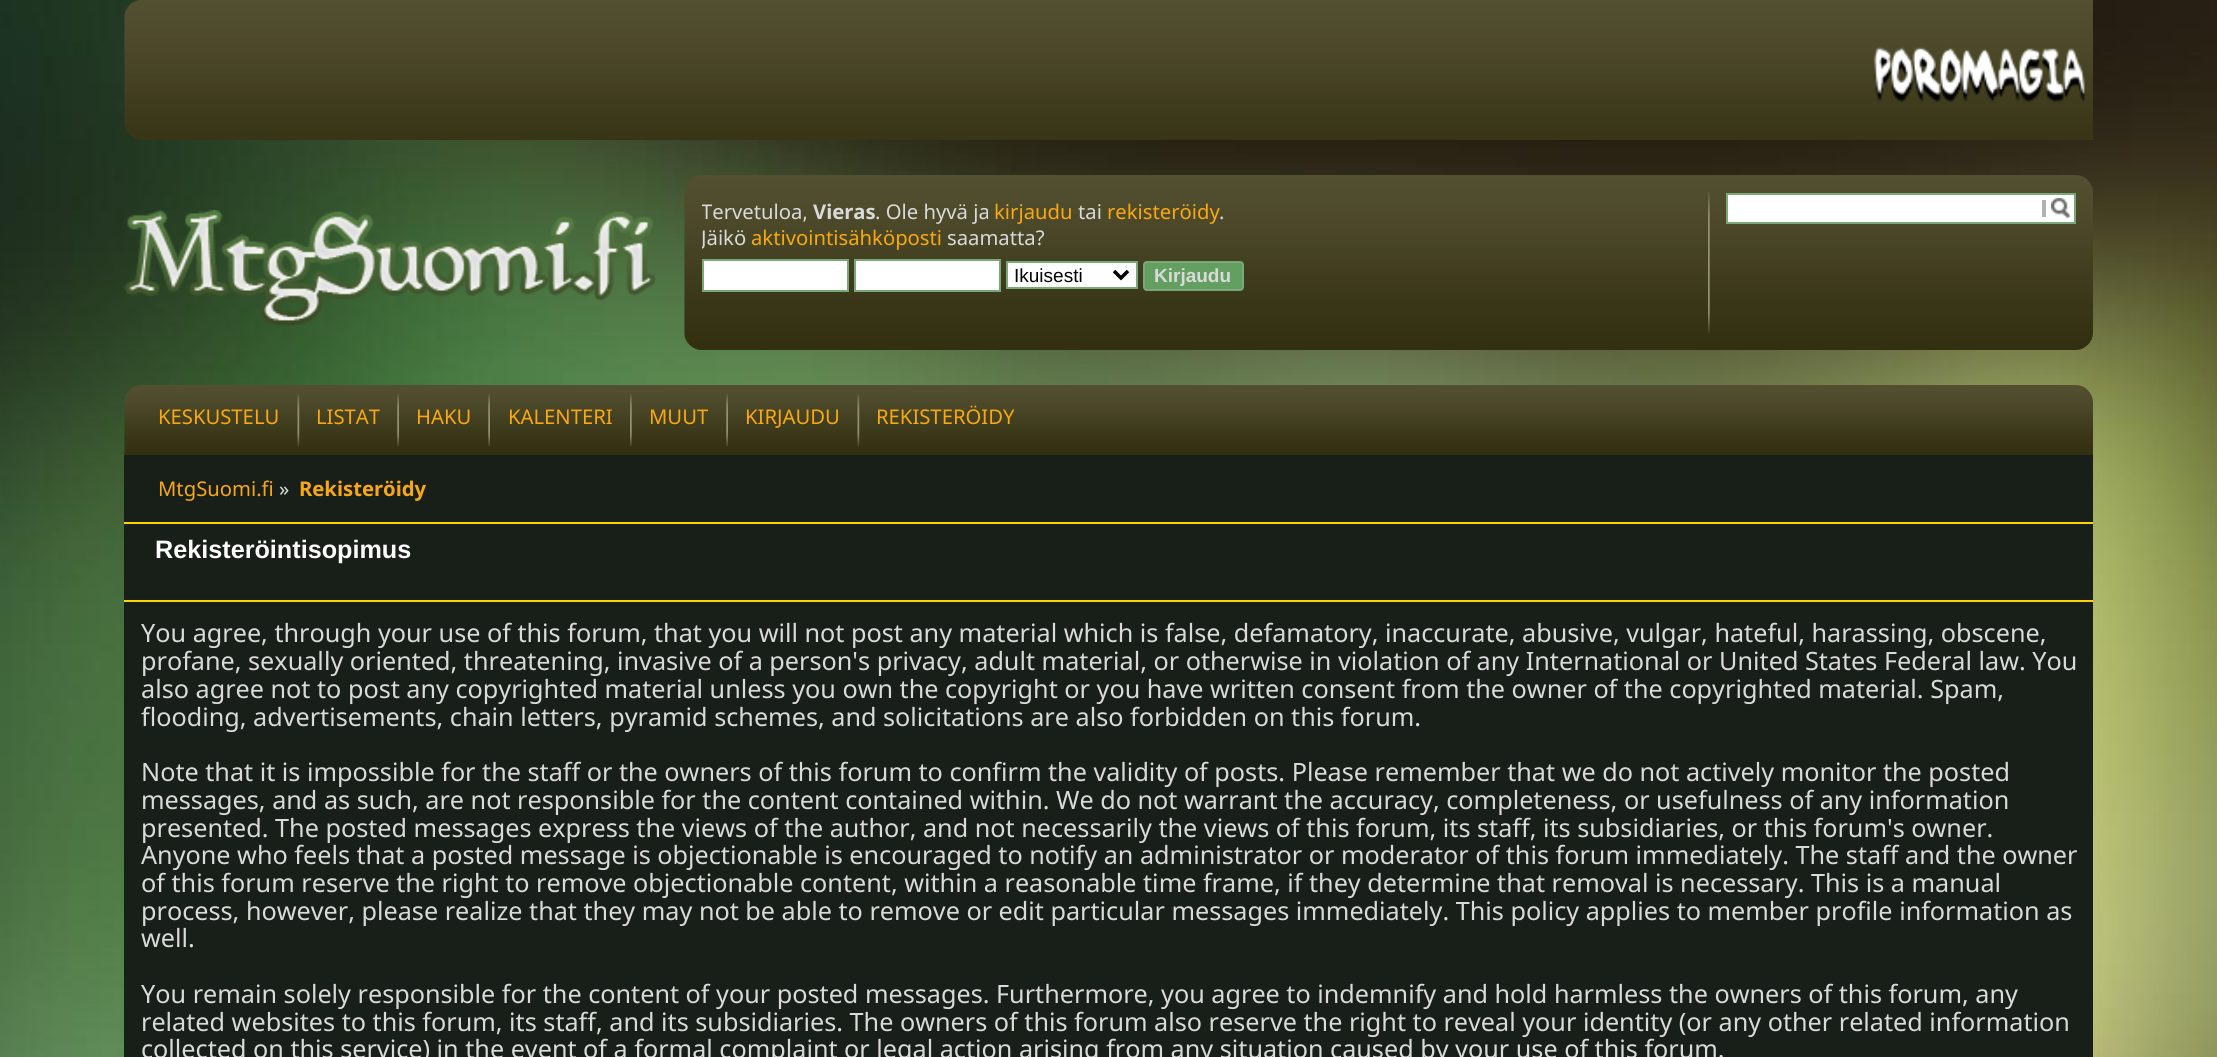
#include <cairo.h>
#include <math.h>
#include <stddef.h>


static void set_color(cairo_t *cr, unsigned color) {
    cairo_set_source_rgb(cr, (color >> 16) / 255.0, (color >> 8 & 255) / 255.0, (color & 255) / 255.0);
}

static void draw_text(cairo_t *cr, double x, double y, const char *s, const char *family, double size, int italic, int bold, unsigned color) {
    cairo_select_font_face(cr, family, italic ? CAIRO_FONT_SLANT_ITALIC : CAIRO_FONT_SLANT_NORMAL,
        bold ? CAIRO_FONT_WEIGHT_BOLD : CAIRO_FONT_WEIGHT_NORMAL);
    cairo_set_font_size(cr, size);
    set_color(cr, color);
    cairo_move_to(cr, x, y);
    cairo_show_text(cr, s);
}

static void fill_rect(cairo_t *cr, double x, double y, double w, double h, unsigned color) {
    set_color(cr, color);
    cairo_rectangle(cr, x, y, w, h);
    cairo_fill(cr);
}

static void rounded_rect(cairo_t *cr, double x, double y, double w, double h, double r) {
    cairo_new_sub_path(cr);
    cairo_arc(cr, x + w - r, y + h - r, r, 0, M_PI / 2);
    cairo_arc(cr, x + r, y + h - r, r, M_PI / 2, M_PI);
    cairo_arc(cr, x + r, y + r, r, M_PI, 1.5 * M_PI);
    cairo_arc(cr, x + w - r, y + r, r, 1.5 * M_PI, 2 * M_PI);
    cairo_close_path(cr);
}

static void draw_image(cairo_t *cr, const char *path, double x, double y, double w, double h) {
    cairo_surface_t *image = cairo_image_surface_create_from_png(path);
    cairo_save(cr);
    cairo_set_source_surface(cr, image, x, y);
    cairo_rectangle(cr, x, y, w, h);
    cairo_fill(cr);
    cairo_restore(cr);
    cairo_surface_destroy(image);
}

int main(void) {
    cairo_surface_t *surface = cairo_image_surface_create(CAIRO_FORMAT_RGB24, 2217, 1057);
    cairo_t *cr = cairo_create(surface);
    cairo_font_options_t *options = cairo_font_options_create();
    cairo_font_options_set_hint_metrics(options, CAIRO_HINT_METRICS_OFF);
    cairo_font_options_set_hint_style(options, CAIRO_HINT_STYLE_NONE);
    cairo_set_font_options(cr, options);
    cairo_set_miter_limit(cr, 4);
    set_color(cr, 0xFFFFFF);
    cairo_paint(cr);
    draw_image(cr, "assets/img1.png", 0, 0, 2217, 1057);
    draw_image(cr, "assets/img2.png", 124, 0, 1742, 140);
    draw_image(cr, "assets/img3.png", 1866, 0, 227, 140);
    draw_image(cr, "assets/img4.png", 124, 210, 532, 116);
    draw_image(cr, "assets/img5.png", 684, 175, 1409, 175);
    cairo_save(cr);
    cairo_rectangle(cr, 702, 193, 989, 99);
    cairo_clip(cr);
    draw_text(cr, 701, 219, "Tervetuloa,", "Noto Sans", 20.25, 0, 0, 0xD9DAD9);
    cairo_restore(cr);
    draw_text(cr, 813, 219, "Vieras", "Noto Sans", 20.25, 0, 1, 0xD9DAD9);
    draw_text(cr, 875, 219, ". Ole hyvä ja", "Noto Sans", 20.25, 0, 0, 0xD9DAD9);
    draw_text(cr, 994, 219, "kirjaudu", "Noto Sans", 20.25, 0, 0, 0xF9A811);
    draw_text(cr, 1078, 219, "tai", "Noto Sans", 20.25, 0, 0, 0xD9DAD9);
    draw_text(cr, 1107, 219, "rekisteröidy", "Noto Sans", 20.25, 0, 0, 0xF9A811);
    draw_text(cr, 1219, 219, ".", "Noto Sans", 20.25, 0, 0, 0xD9DAD9);
    cairo_save(cr);
    cairo_rectangle(cr, 702, 193, 989, 99);
    cairo_clip(cr);
    draw_text(cr, 701, 245, "Jäikö", "Noto Sans", 20.25, 0, 0, 0xD9DAD9);
    cairo_restore(cr);
    draw_text(cr, 751, 245, "aktivointisähköposti", "Noto Sans", 20.25, 0, 0, 0xF9A811);
    draw_text(cr, 947, 245, "saamatta?", "Noto Sans", 20.25, 0, 0, 0xD9DAD9);
    set_color(cr, 0xFFFFFF);
    cairo_rectangle(cr, 703, 260, 145, 31);
    cairo_fill_preserve(cr);
    set_color(cr, 0x79A979);
    cairo_stroke(cr);
    set_color(cr, 0xFFFFFF);
    cairo_rectangle(cr, 855, 260, 145, 31);
    cairo_fill_preserve(cr);
    set_color(cr, 0x79A979);
    cairo_stroke(cr);
    set_color(cr, 0xFFFFFF);
    cairo_rectangle(cr, 1007, 262, 130, 26);
    cairo_fill_preserve(cr);
    set_color(cr, 0x79A979);
    cairo_stroke(cr);
    cairo_new_path(cr);
    cairo_move_to(cr, 1114, 271);
    cairo_line_to(cr, 1121, 278);
    cairo_line_to(cr, 1128, 271);
    set_color(cr, 0x000000);
    cairo_set_line_width(cr, 3.5);
    cairo_stroke(cr);
    draw_text(cr, 1014, 282, "Ikuisesti", "Liberation Sans", 19, 0, 0, 0x000000);
    set_color(cr, 0x639F61);
    rounded_rect(cr, 1144, 262, 99, 28, 3);
    cairo_fill_preserve(cr);
    set_color(cr, 0x79A979);
    cairo_set_line_width(cr, 2);
    cairo_stroke(cr);
    draw_text(cr, 1154, 282, "Kirjaudu", "Liberation Sans", 19, 0, 1, 0xD9DAD9);
    draw_image(cr, "assets/img6.png", 1708, 192, 2, 141);
    set_color(cr, 0xFFFFFF);
    cairo_rectangle(cr, 1727, 194, 348, 29);
    cairo_fill_preserve(cr);
    set_color(cr, 0x79A979);
    cairo_stroke(cr);
    fill_rect(cr, 2042, 200, 4, 17, 0xB2B2B2);
    draw_image(cr, "assets/img7.png", 2051, 197, 20, 22);
    draw_image(cr, "assets/img8.png", 124, 385, 1969, 70);
    draw_text(cr, 158, 424, "KESKUSTELU", "Noto Sans", 20.25, 0, 0, 0xF9A811);
    draw_image(cr, "assets/img9.png", 297, 394, 3, 53);
    draw_text(cr, 316, 424, "LISTAT", "Noto Sans", 20.25, 0, 0, 0xF9A811);
    draw_image(cr, "assets/img10.png", 397, 394, 2, 53);
    draw_text(cr, 416, 424, "HAKU", "Noto Sans", 20.25, 0, 0, 0xF9A811);
    draw_image(cr, "assets/img10.png", 488, 394, 2, 53);
    draw_text(cr, 508, 424, "KALENTERI", "Noto Sans", 20.25, 0, 0, 0xF9A811);
    draw_image(cr, "assets/img11.png", 630, 394, 2, 53);
    draw_text(cr, 649, 424, "MUUT", "Noto Sans", 20.25, 0, 0, 0xF9A811);
    draw_image(cr, "assets/img10.png", 726, 394, 2, 53);
    draw_text(cr, 745, 424, "KIRJAUDU", "Noto Sans", 20.25, 0, 0, 0xF9A811);
    draw_image(cr, "assets/img9.png", 857, 394, 3, 53);
    draw_text(cr, 876, 424, "REKISTERÖIDY", "Noto Sans", 20.25, 0, 0, 0xF9A811);
    fill_rect(cr, 124, 455, 1969, 602, 0x181F18);
    fill_rect(cr, 124, 522, 1969, 2, 0xFFD202);
    draw_text(cr, 158, 496, "MtgSuomi.fi", "Noto Sans", 20.25, 0, 0, 0xF9A811);
    draw_text(cr, 279, 496, "»", "Noto Sans", 20.25, 0, 0, 0xD9DAD9);
    draw_text(cr, 299, 496, "Rekisteröidy", "Noto Sans", 20.25, 0, 1, 0xF9A811);
    draw_text(cr, 155, 558, "Rekisteröintisopimus", "Liberation Sans", 25.2, 0, 1, 0xFFFFFF);
    fill_rect(cr, 124, 600, 1969, 2, 0xFFD202);
    draw_text(cr, 141, 642, "You agree, through your use of this forum, that you will not post any material which is false, defamatory, inaccurate, abusive, vulgar, hateful, harassing, obscene,", "Noto Sans", 25.2, 0, 0, 0xD9DAD9);
    draw_text(cr, 141, 670, "profane, sexually oriented, threatening, invasive of a person's privacy, adult material, or otherwise in violation of any International or United States Federal law. You", "Noto Sans", 25.2, 0, 0, 0xD9DAD9);
    draw_text(cr, 141, 698, "also agree not to post any copyrighted material unless you own the copyright or you have written consent from the owner of the copyrighted material. Spam,", "Noto Sans", 25.2, 0, 0, 0xD9DAD9);
    draw_text(cr, 141, 726, "flooding, advertisements, chain letters, pyramid schemes, and solicitations are also forbidden on this forum.", "Noto Sans", 25.2, 0, 0, 0xD9DAD9);
    draw_text(cr, 141, 781, "Note that it is impossible for the staff or the owners of this forum to confirm the validity of posts. Please remember that we do not actively monitor the posted", "Noto Sans", 25.2, 0, 0, 0xD9DAD9);
    draw_text(cr, 141, 809, "messages, and as such, are not responsible for the content contained within. We do not warrant the accuracy, completeness, or usefulness of any information", "Noto Sans", 25.2, 0, 0, 0xD9DAD9);
    draw_text(cr, 141, 837, "presented. The posted messages express the views of the author, and not necessarily the views of this forum, its staff, its subsidiaries, or this forum's owner.", "Noto Sans", 25.2, 0, 0, 0xD9DAD9);
    draw_text(cr, 141, 864, "Anyone who feels that a posted message is objectionable is encouraged to notify an administrator or moderator of this forum immediately. The staff and the owner", "Noto Sans", 25.2, 0, 0, 0xD9DAD9);
    draw_text(cr, 141, 892, "of this forum reserve the right to remove objectionable content, within a reasonable time frame, if they determine that removal is necessary. This is a manual", "Noto Sans", 25.2, 0, 0, 0xD9DAD9);
    draw_text(cr, 141, 920, "process, however, please realize that they may not be able to remove or edit particular messages immediately. This policy applies to member profile information as", "Noto Sans", 25.2, 0, 0, 0xD9DAD9);
    draw_text(cr, 141, 947, "well.", "Noto Sans", 25.2, 0, 0, 0xD9DAD9);
    draw_text(cr, 141, 1003, "You remain solely responsible for the content of your posted messages. Furthermore, you agree to indemnify and hold harmless the owners of this forum, any", "Noto Sans", 25.2, 0, 0, 0xD9DAD9);
    draw_text(cr, 141, 1031, "related websites to this forum, its staff, and its subsidiaries. The owners of this forum also reserve the right to reveal your identity (or any other related information", "Noto Sans", 25.2, 0, 0, 0xD9DAD9);
    draw_text(cr, 141, 1058, "collected on this service) in the event of a formal complaint or legal action arising from any situation caused by your use of this forum.", "Noto Sans", 25.2, 0, 0, 0xD9DAD9);
    cairo_surface_write_to_png(surface, "output.png");
    cairo_font_options_destroy(options);
    cairo_destroy(cr);
    cairo_surface_destroy(surface);
    return 0;
}
